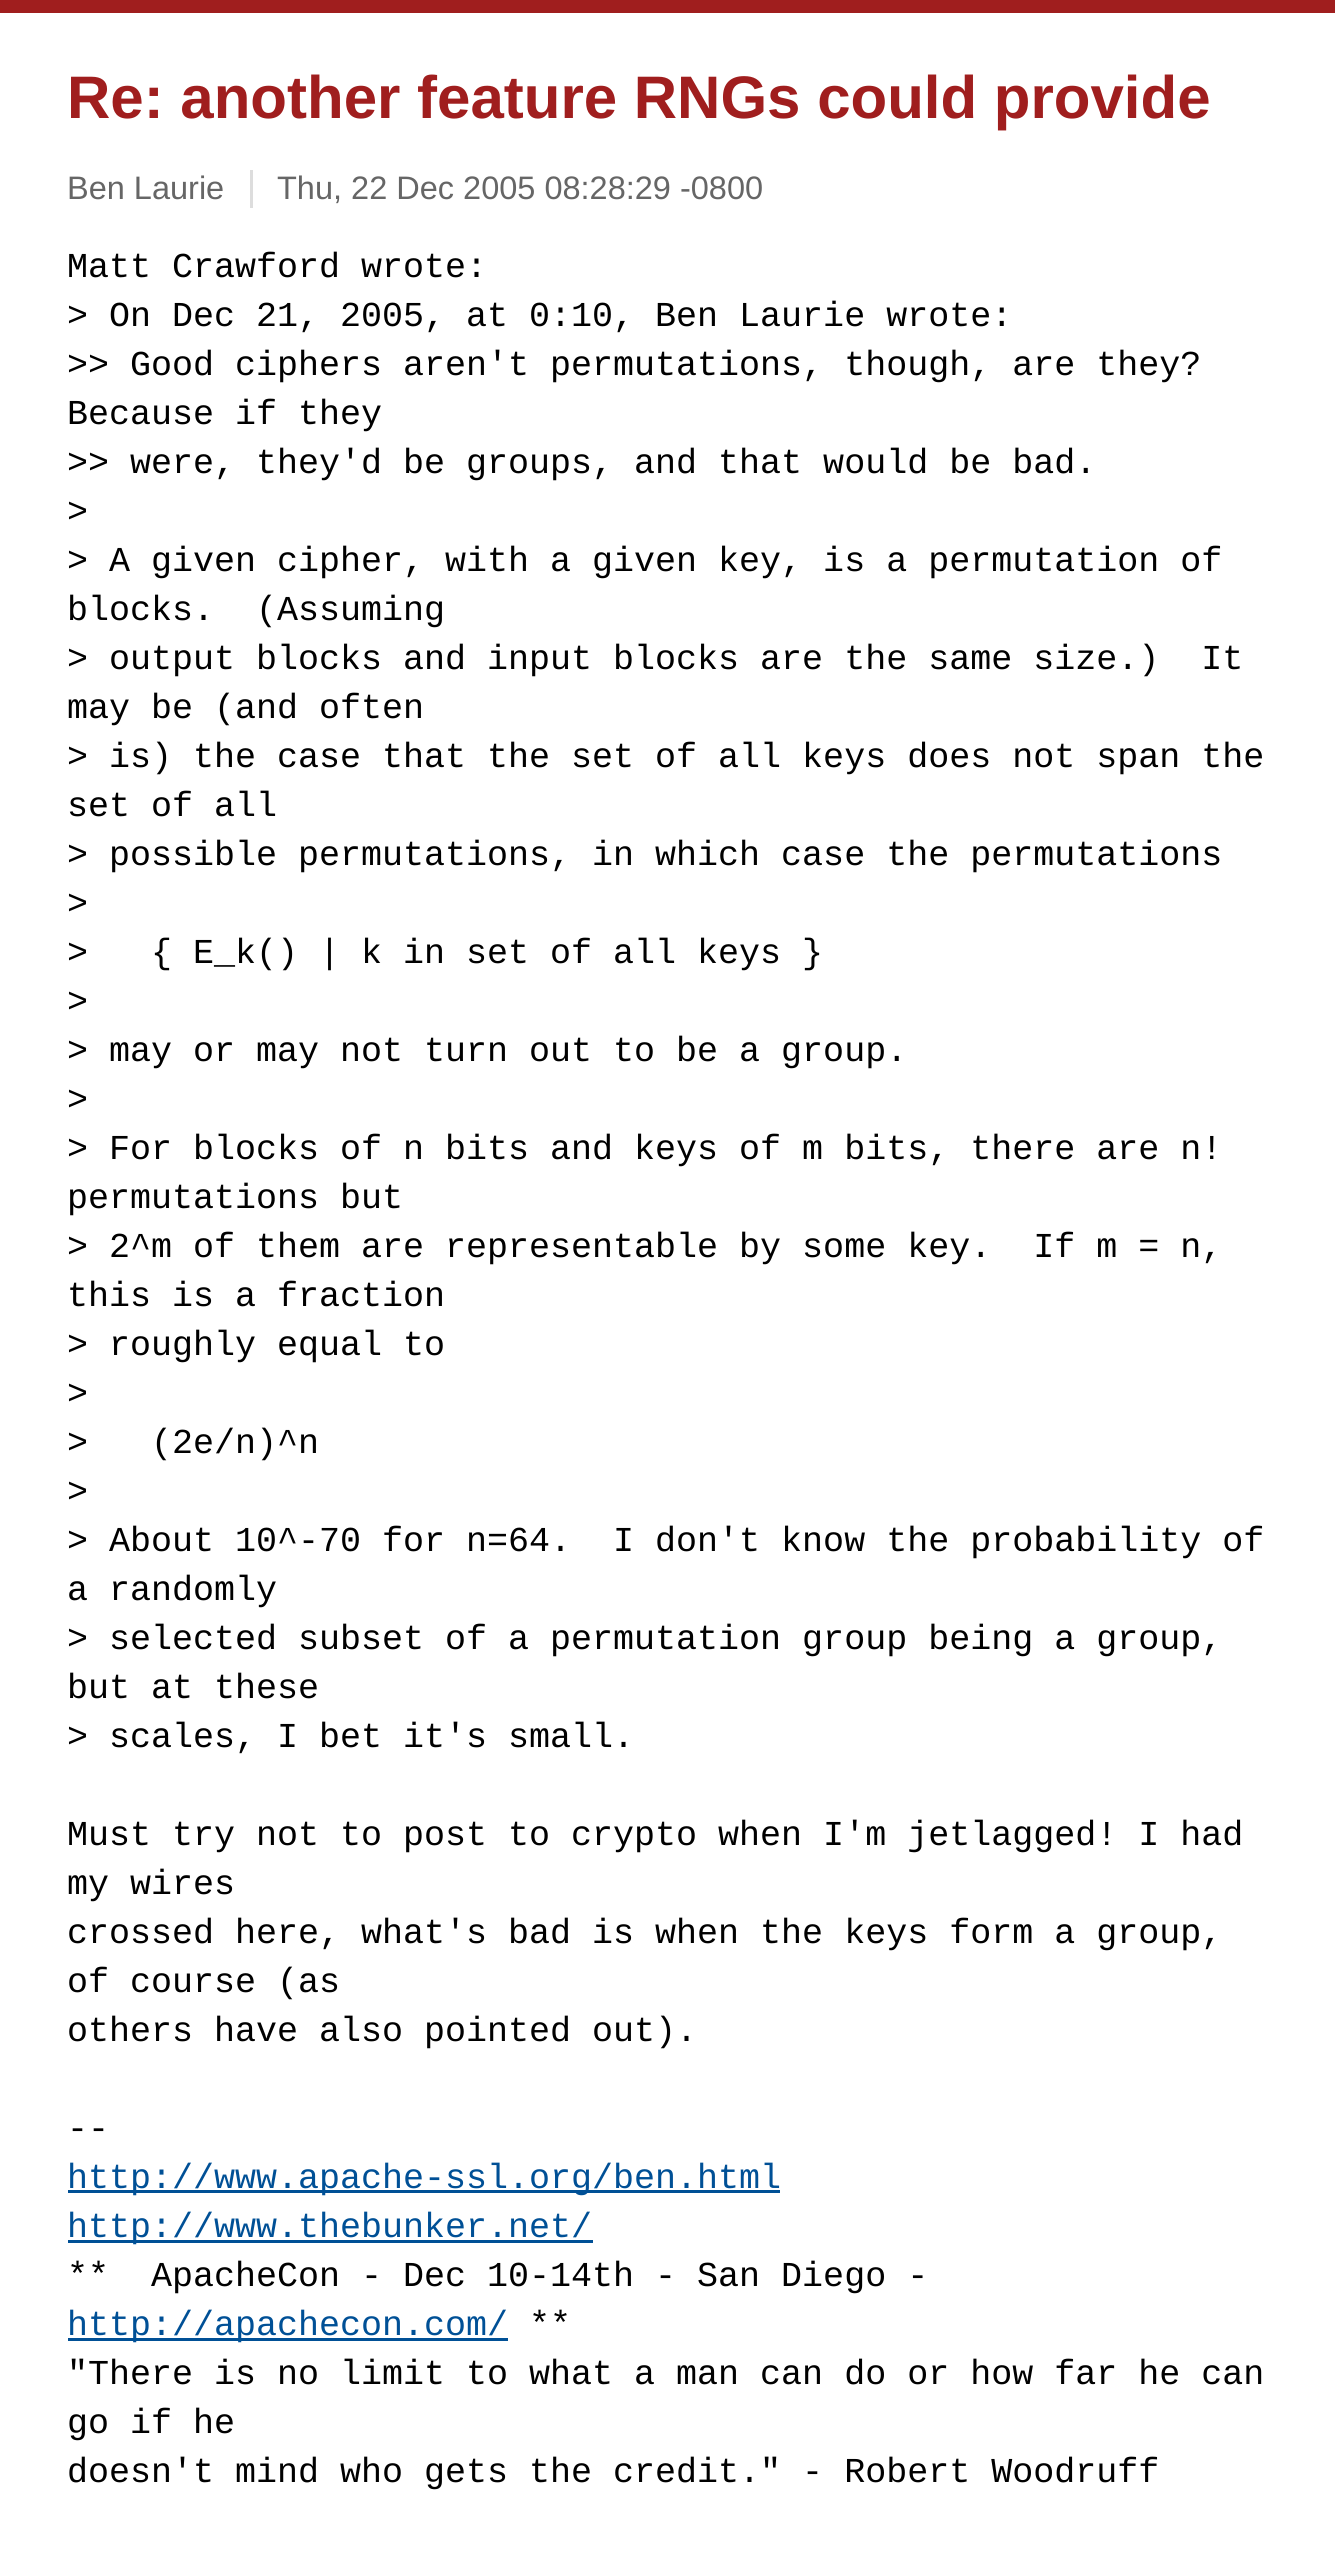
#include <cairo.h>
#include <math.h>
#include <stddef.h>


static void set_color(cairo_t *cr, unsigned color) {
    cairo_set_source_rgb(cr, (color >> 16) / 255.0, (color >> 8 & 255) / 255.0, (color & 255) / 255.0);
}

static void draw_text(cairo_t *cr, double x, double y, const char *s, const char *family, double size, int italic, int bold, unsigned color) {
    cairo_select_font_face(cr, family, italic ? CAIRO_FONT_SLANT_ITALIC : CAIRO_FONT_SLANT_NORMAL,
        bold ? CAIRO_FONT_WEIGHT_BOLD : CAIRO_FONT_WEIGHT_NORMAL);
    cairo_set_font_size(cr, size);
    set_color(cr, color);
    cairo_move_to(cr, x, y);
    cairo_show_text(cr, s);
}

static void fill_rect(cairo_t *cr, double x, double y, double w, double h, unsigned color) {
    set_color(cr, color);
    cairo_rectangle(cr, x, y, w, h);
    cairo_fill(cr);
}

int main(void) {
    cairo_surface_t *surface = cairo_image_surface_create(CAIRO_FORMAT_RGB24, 1335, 2564);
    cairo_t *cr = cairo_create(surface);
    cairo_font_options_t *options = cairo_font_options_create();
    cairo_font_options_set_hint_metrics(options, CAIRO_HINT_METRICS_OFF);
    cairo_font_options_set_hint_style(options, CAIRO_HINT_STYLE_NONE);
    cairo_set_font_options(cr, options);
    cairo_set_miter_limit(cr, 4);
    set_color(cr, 0xFFFFFF);
    cairo_paint(cr);
    fill_rect(cr, 0, 0, 1335, 13, 0xA01E1E);
    draw_text(cr, 67, 118, "Re: another feature RNGs could provide", "Liberation Sans", 60, 0, 1, 0xA01E1E);
    draw_text(cr, 67, 199, "Ben Laurie", "Liberation Sans", 32.5, 0, 0, 0x666666);
    fill_rect(cr, 250, 170, 3, 38, 0xDDDDDD);
    draw_text(cr, 277, 199, "Thu, 22 Dec 2005 08:28:29 -0800", "Liberation Sans", 32.5, 0, 0, 0x666666);
    draw_text(cr, 67, 277, "Matt Crawford wrote:", "Liberation Mono", 35, 0, 0, 0x000000);
    draw_text(cr, 67, 326, "> On Dec 21, 2005, at 0:10, Ben Laurie wrote:", "Liberation Mono", 35, 0, 0, 0x000000);
    draw_text(cr, 67, 375, ">> Good ciphers aren't permutations, though, are they?", "Liberation Mono", 35, 0, 0, 0x000000);
    draw_text(cr, 67, 424, "Because if they", "Liberation Mono", 35, 0, 0, 0x000000);
    draw_text(cr, 67, 473, ">> were, they'd be groups, and that would be bad.", "Liberation Mono", 35, 0, 0, 0x000000);
    draw_text(cr, 67, 522, ">", "Liberation Mono", 35, 0, 0, 0x000000);
    draw_text(cr, 67, 571, "> A given cipher, with a given key, is a permutation of", "Liberation Mono", 35, 0, 0, 0x000000);
    draw_text(cr, 67, 620, "blocks.  (Assuming", "Liberation Mono", 35, 0, 0, 0x000000);
    draw_text(cr, 67, 669, "> output blocks and input blocks are the same size.)  It", "Liberation Mono", 35, 0, 0, 0x000000);
    draw_text(cr, 67, 718, "may be (and often", "Liberation Mono", 35, 0, 0, 0x000000);
    draw_text(cr, 67, 767, "> is) the case that the set of all keys does not span the", "Liberation Mono", 35, 0, 0, 0x000000);
    draw_text(cr, 67, 816, "set of all", "Liberation Mono", 35, 0, 0, 0x000000);
    draw_text(cr, 67, 865, "> possible permutations, in which case the permutations", "Liberation Mono", 35, 0, 0, 0x000000);
    draw_text(cr, 67, 914, ">", "Liberation Mono", 35, 0, 0, 0x000000);
    draw_text(cr, 67, 963, ">   { E_k() | k in set of all keys }", "Liberation Mono", 35, 0, 0, 0x000000);
    draw_text(cr, 67, 1012, ">", "Liberation Mono", 35, 0, 0, 0x000000);
    draw_text(cr, 67, 1061, "> may or may not turn out to be a group.", "Liberation Mono", 35, 0, 0, 0x000000);
    draw_text(cr, 67, 1110, ">", "Liberation Mono", 35, 0, 0, 0x000000);
    draw_text(cr, 67, 1159, "> For blocks of n bits and keys of m bits, there are n!", "Liberation Mono", 35, 0, 0, 0x000000);
    draw_text(cr, 67, 1208, "permutations but", "Liberation Mono", 35, 0, 0, 0x000000);
    draw_text(cr, 67, 1257, "> 2^m of them are representable by some key.  If m = n,", "Liberation Mono", 35, 0, 0, 0x000000);
    draw_text(cr, 67, 1306, "this is a fraction", "Liberation Mono", 35, 0, 0, 0x000000);
    draw_text(cr, 67, 1355, "> roughly equal to", "Liberation Mono", 35, 0, 0, 0x000000);
    draw_text(cr, 67, 1404, ">", "Liberation Mono", 35, 0, 0, 0x000000);
    draw_text(cr, 67, 1453, ">   (2e/n)^n", "Liberation Mono", 35, 0, 0, 0x000000);
    draw_text(cr, 67, 1502, ">", "Liberation Mono", 35, 0, 0, 0x000000);
    draw_text(cr, 67, 1551, "> About 10^-70 for n=64.  I don't know the probability of", "Liberation Mono", 35, 0, 0, 0x000000);
    draw_text(cr, 67, 1600, "a randomly", "Liberation Mono", 35, 0, 0, 0x000000);
    draw_text(cr, 67, 1649, "> selected subset of a permutation group being a group,", "Liberation Mono", 35, 0, 0, 0x000000);
    draw_text(cr, 67, 1698, "but at these", "Liberation Mono", 35, 0, 0, 0x000000);
    draw_text(cr, 67, 1747, "> scales, I bet it's small.", "Liberation Mono", 35, 0, 0, 0x000000);
    draw_text(cr, 67, 1845, "Must try not to post to crypto when I'm jetlagged! I had", "Liberation Mono", 35, 0, 0, 0x000000);
    draw_text(cr, 67, 1894, "my wires", "Liberation Mono", 35, 0, 0, 0x000000);
    draw_text(cr, 67, 1943, "crossed here, what's bad is when the keys form a group,", "Liberation Mono", 35, 0, 0, 0x000000);
    draw_text(cr, 67, 1992, "of course (as", "Liberation Mono", 35, 0, 0, 0x000000);
    draw_text(cr, 67, 2041, "others have also pointed out).", "Liberation Mono", 35, 0, 0, 0x000000);
    draw_text(cr, 67, 2139, "--", "Liberation Mono", 35, 0, 0, 0x000000);
    fill_rect(cr, 68, 2190, 712, 3, 0x005096);
    draw_text(cr, 67, 2188, "http://www.apache-ssl.org/ben.html", "Liberation Mono", 35, 0, 0, 0x005096);
    fill_rect(cr, 68, 2240, 525, 3, 0x005096);
    draw_text(cr, 67, 2237, "http://www.thebunker.net/", "Liberation Mono", 35, 0, 0, 0x005096);
    draw_text(cr, 67, 2286, "**  ApacheCon - Dec 10-14th - San Diego -", "Liberation Mono", 35, 0, 0, 0x000000);
    fill_rect(cr, 68, 2338, 440, 3, 0x005096);
    draw_text(cr, 67, 2335, "http://apachecon.com/", "Liberation Mono", 35, 0, 0, 0x005096);
    draw_text(cr, 529, 2335, "**", "Liberation Mono", 35, 0, 0, 0x000000);
    draw_text(cr, 67, 2384, "\"There is no limit to what a man can do or how far he can", "Liberation Mono", 35, 0, 0, 0x000000);
    draw_text(cr, 67, 2433, "go if he", "Liberation Mono", 35, 0, 0, 0x000000);
    draw_text(cr, 67, 2482, "doesn't mind who gets the credit.\" - Robert Woodruff", "Liberation Mono", 35, 0, 0, 0x000000);
    cairo_surface_write_to_png(surface, "output.png");
    cairo_font_options_destroy(options);
    cairo_destroy(cr);
    cairo_surface_destroy(surface);
    return 0;
}
